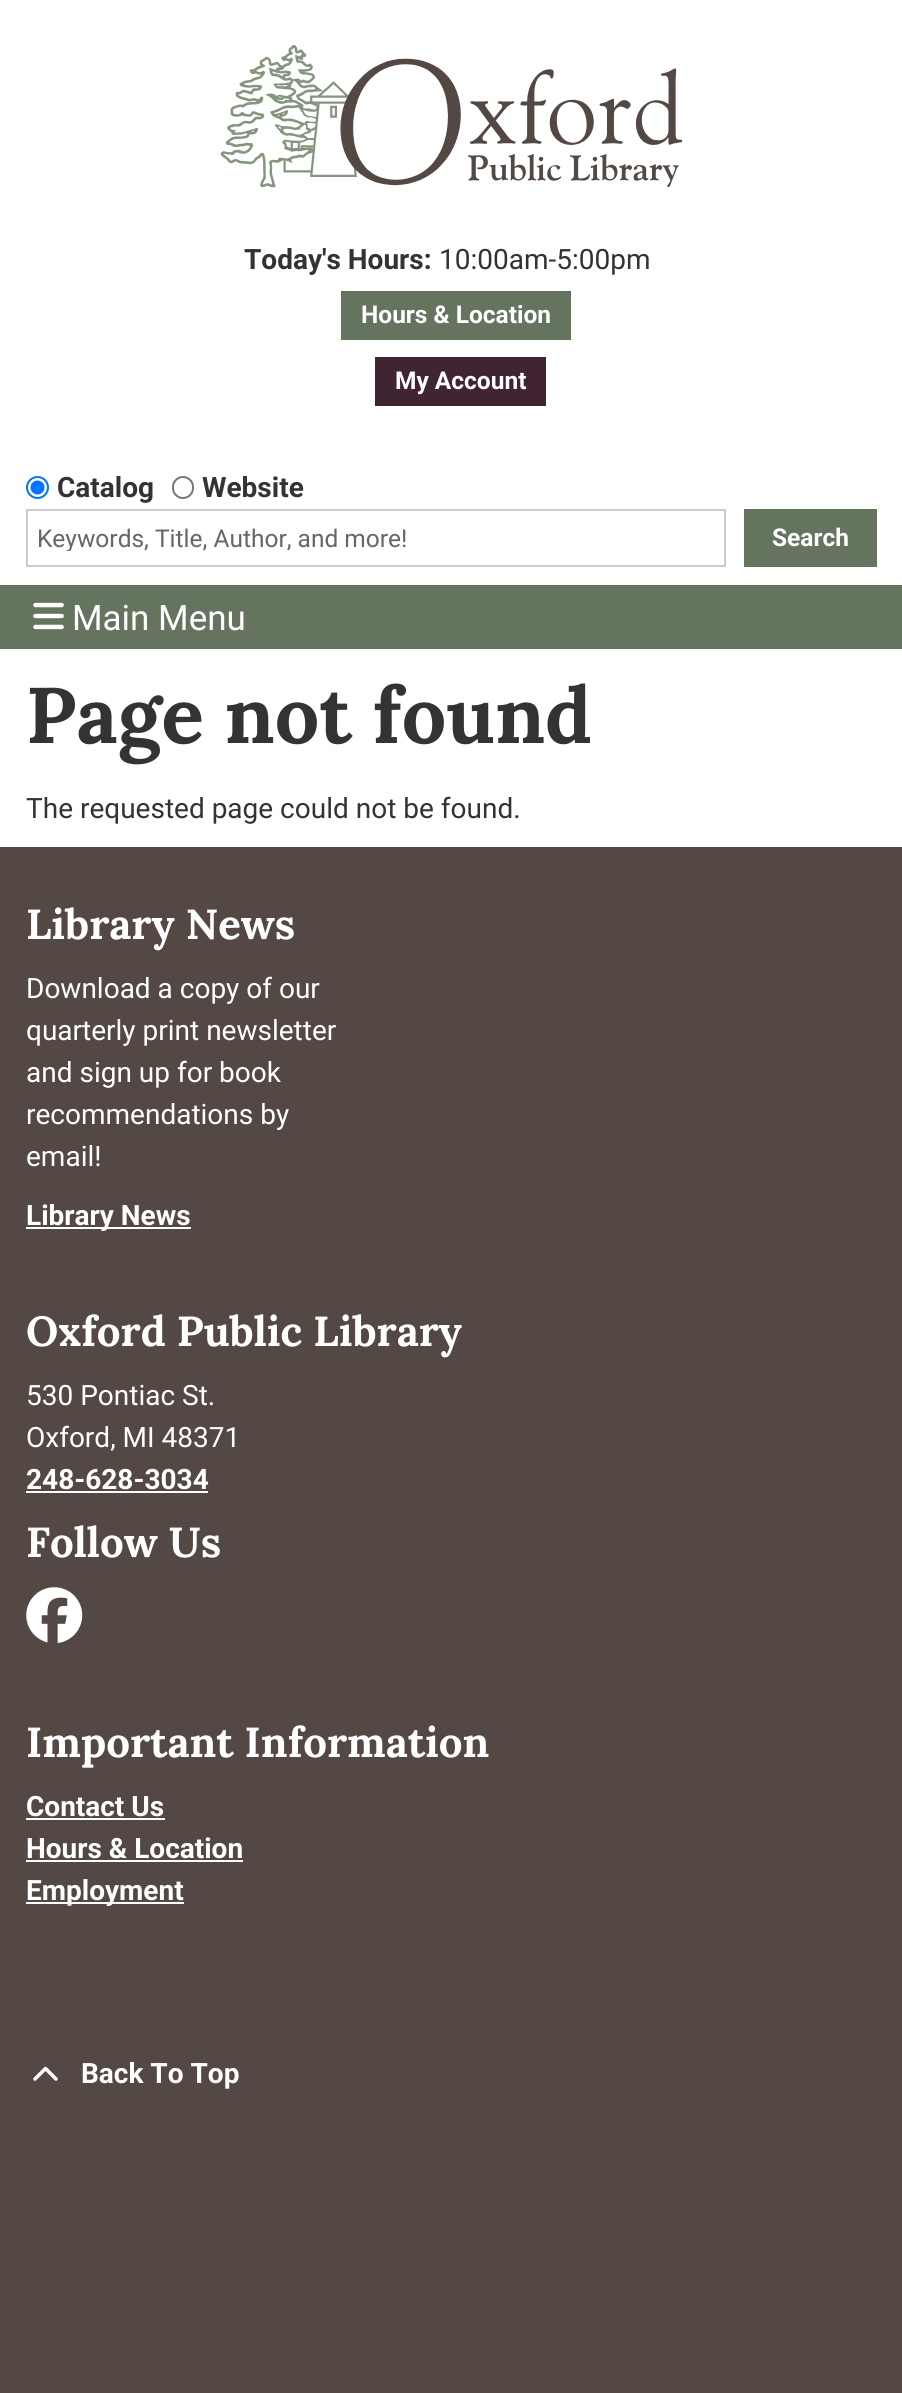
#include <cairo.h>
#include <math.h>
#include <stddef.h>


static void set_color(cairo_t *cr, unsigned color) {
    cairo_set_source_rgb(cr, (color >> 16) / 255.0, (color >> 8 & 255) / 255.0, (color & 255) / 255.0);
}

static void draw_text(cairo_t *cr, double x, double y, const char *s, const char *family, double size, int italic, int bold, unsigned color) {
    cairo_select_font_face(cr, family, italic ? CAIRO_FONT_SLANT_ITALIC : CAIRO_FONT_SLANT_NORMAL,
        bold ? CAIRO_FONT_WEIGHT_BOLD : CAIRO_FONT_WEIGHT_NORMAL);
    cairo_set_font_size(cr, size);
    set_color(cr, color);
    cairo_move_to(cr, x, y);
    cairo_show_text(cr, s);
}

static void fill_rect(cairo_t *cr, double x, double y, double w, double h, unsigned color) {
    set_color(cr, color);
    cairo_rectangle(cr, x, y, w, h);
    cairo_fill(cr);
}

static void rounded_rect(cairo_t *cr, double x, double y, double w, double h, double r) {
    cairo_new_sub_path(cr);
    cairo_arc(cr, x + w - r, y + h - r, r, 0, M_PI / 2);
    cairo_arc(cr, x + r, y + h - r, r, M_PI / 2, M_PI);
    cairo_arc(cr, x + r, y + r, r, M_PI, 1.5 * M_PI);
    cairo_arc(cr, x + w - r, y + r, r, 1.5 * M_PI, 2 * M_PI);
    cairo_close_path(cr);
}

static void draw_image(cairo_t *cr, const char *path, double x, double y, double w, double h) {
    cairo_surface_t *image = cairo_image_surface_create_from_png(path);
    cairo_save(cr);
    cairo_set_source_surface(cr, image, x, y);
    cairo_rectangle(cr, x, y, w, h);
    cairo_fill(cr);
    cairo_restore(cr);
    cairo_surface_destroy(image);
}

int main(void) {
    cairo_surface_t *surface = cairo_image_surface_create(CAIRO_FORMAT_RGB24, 902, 2393);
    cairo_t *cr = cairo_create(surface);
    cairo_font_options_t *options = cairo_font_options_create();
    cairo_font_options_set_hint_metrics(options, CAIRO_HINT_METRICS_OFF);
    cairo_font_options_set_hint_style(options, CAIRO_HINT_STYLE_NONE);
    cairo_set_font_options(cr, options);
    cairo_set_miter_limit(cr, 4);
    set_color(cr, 0x534844);
    cairo_paint(cr);
    fill_rect(cr, 0, 0, 902, 847, 0xFFFFFF);
    draw_image(cr, "assets/img1.png", 220, 45, 463, 143);
    draw_text(cr, 244, 269, "Today's Hours:", "Roboto", 28, 0, 1, 0x333333);
    draw_text(cr, 439, 269, "10:00am-5:00pm", "Roboto", 28, 0, 0, 0x333333);
    fill_rect(cr, 341, 291, 230, 49, 0x64745F);
    draw_text(cr, 361, 323, "Hours & Location", "Roboto", 24.5, 0, 1, 0xFFFFFF);
    fill_rect(cr, 375, 357, 171, 49, 0x402432);
    draw_text(cr, 395, 389, "My Account", "Roboto", 24.5, 0, 1, 0xFFFFFF);
    cairo_new_path(cr);
    cairo_arc(cr, 37.5, 487.5, 10.5, 0, 2 * M_PI);
    set_color(cr, 0x0075FF);
    cairo_stroke(cr);
    cairo_arc(cr, 37.5, 487.5, 7, 0, 2 * M_PI);
    cairo_fill(cr);
    draw_text(cr, 57, 497, "Catalog", "Roboto", 28, 0, 1, 0x333333);
    rounded_rect(cr, 173, 477, 20, 21, 10);
    set_color(cr, 0x767676);
    cairo_stroke(cr);
    draw_text(cr, 202, 497, "Website", "Roboto", 28, 0, 1, 0x333333);
    cairo_rectangle(cr, 27, 510, 698, 56);
    set_color(cr, 0xCCCCCC);
    cairo_stroke(cr);
    cairo_save(cr);
    cairo_rectangle(cr, 37, 523, 679, 28);
    cairo_clip(cr);
    draw_text(cr, 37, 547, "Keywords, Title, Author, and more!", "Roboto", 24.5, 0, 0, 0x666666);
    cairo_restore(cr);
    fill_rect(cr, 744, 509, 133, 58, 0x64745F);
    draw_text(cr, 772, 546, "Search", "Roboto", 24.5, 0, 1, 0xFFFFFF);
    fill_rect(cr, 0, 585, 902, 64, 0x64745F);
    draw_image(cr, "assets/img2.png", 33, 602, 31, 28);
    draw_text(cr, 72, 630, "Main Menu", "Roboto", 35, 0, 0, 0xFFFFFF);
    draw_text(cr, 26, 743, "Page not found", "Lora", 78.75, 0, 1, 0x333333);
    draw_text(cr, 26, 818, "The requested page could not be found.", "Roboto", 28, 0, 0, 0x333333);
    draw_text(cr, 26, 939, "Library News", "Lora", 42, 0, 1, 0xFFFFFF);
    draw_text(cr, 26, 998, "Download a copy of our", "Roboto", 28, 0, 0, 0xFFFFFF);
    draw_text(cr, 26, 1040, "quarterly print newsletter", "Roboto", 28, 0, 0, 0xFFFFFF);
    draw_text(cr, 26, 1082, "and sign up for book", "Roboto", 28, 0, 0, 0xFFFFFF);
    draw_text(cr, 26, 1124, "recommendations by", "Roboto", 28, 0, 0, 0xFFFFFF);
    draw_text(cr, 26, 1166, "email!", "Roboto", 28, 0, 0, 0xFFFFFF);
    fill_rect(cr, 26, 1227, 165, 2, 0xFFFFFF);
    draw_text(cr, 26, 1225, "Library News", "Roboto", 28, 0, 1, 0xFFFFFF);
    draw_text(cr, 26, 1346, "Oxford Public Library", "Lora", 42, 0, 1, 0xFFFFFF);
    draw_text(cr, 26, 1405, "530 Pontiac St.", "Roboto", 28, 0, 0, 0xFFFFFF);
    draw_text(cr, 26, 1447, "Oxford, MI 48371", "Roboto", 28, 0, 0, 0xFFFFFF);
    draw_text(cr, 26, 1489, "248-628-3034", "Roboto", 28, 0, 1, 0xFFFFFF);
    fill_rect(cr, 26, 1491, 182, 2, 0xFFFFFF);
    draw_text(cr, 26, 1557, "Follow Us", "Lora", 42, 0, 1, 0xFFFFFF);
    draw_image(cr, "assets/img3.png", 26, 1587, 57, 56);
    draw_text(cr, 26, 1757, "Important Information", "Lora", 42, 0, 1, 0xFFFFFF);
    draw_text(cr, 26, 1816, "Contact Us", "Roboto", 28, 0, 1, 0xFFFFFF);
    fill_rect(cr, 26, 1818, 139, 2, 0xFFFFFF);
    draw_text(cr, 26, 1858, "Hours & Location", "Roboto", 28, 0, 1, 0xFFFFFF);
    fill_rect(cr, 26, 1860, 217, 2, 0xFFFFFF);
    fill_rect(cr, 26, 1902, 158, 2, 0xFFFFFF);
    draw_text(cr, 26, 1900, "Employment", "Roboto", 28, 0, 1, 0xFFFFFF);
    draw_image(cr, "assets/img4.png", 33, 2066, 25, 15);
    draw_text(cr, 81, 2083, "Back To Top", "Roboto", 28, 0, 1, 0xFFFFFF);
    cairo_surface_write_to_png(surface, "output.png");
    cairo_font_options_destroy(options);
    cairo_destroy(cr);
    cairo_surface_destroy(surface);
    return 0;
}
